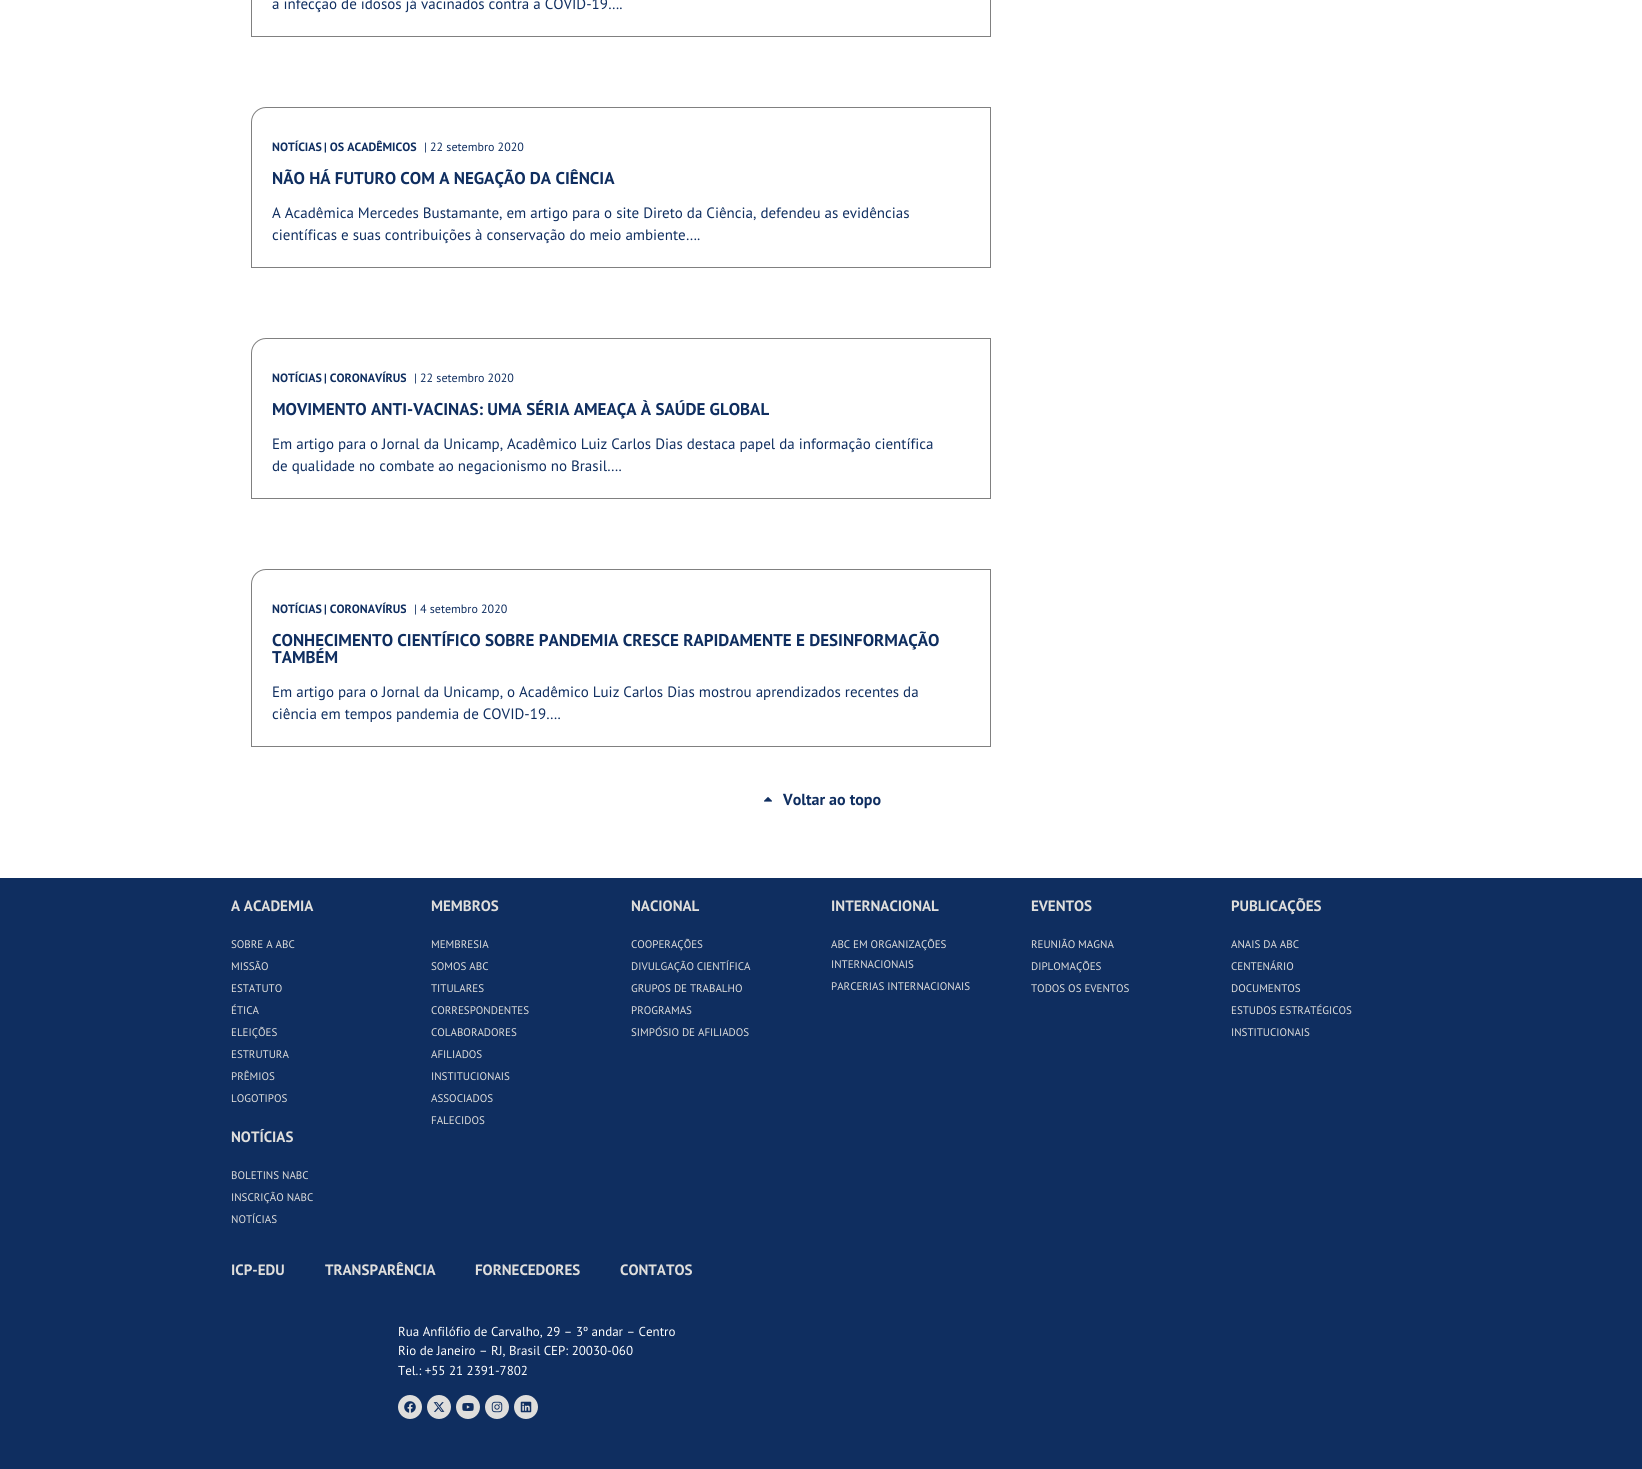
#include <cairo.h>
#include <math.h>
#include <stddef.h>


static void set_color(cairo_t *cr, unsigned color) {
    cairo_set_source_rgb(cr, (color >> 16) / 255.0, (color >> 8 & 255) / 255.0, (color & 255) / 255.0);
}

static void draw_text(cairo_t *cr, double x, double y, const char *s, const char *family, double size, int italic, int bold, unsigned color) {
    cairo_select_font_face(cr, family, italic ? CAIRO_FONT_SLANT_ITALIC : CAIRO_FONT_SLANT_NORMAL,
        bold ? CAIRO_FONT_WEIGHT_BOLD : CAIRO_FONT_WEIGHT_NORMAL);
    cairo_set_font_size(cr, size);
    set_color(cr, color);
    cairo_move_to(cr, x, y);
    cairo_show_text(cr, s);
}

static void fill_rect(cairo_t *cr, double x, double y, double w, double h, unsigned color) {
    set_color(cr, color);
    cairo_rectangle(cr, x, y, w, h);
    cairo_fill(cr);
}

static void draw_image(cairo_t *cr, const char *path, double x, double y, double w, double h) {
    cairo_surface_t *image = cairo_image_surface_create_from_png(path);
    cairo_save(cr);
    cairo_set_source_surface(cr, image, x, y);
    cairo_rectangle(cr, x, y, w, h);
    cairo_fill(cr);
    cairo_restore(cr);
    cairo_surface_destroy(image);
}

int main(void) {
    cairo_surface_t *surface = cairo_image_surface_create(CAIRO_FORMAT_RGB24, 1642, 1469);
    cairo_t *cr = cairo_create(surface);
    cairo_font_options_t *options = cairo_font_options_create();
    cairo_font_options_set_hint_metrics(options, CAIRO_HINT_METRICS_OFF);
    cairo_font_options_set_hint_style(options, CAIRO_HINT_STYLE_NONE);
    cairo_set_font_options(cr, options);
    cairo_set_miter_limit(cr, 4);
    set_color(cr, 0xFFFFFF);
    cairo_paint(cr);
    cairo_rectangle(cr, 251.5, -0.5, 739, 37);
    set_color(cr, 0x808080);
    cairo_set_line_width(cr, 1);
    cairo_stroke(cr);
    draw_text(cr, 272, 9, "a infecção de idosos já vacinados contra a COVID-19….", "PT Sans", 15, 0, 0, 0x0F2E60);
    cairo_new_path(cr);
    cairo_move_to(cr, 266, 107.5);
    cairo_line_to(cr, 990.5, 107.5);
    cairo_line_to(cr, 990.5, 267.5);
    cairo_line_to(cr, 251.5, 267.5);
    cairo_line_to(cr, 251.5, 122);
    cairo_curve_to(cr, 251.5, 114, 258, 107.5, 266, 107.5);
    cairo_close_path(cr);
    set_color(cr, 0x808080);
    cairo_stroke(cr);
    draw_text(cr, 272, 151, "NOTÍCIAS", "PT Sans", 12, 0, 1, 0x0F2E60);
    draw_text(cr, 324, 151, "| OS ACADÊMICOS", "PT Sans", 12, 0, 1, 0x0F2E60);
    draw_text(cr, 424, 151, "| 22 setembro 2020", "PT Sans", 12, 0, 0, 0x0F2E60);
    draw_text(cr, 272, 184, "NÃO HÁ FUTURO COM A NEGAÇÃO DA CIÊNCIA", "PT Sans", 17, 0, 1, 0x0F2E60);
    draw_text(cr, 272, 218, "A Acadêmica Mercedes Bustamante, em artigo para o site Direto da Ciência, defendeu as evidências", "PT Sans", 15, 0, 0, 0x0F2E60);
    draw_text(cr, 272, 240, "científicas e suas contribuições à conservação do meio ambiente….", "PT Sans", 15, 0, 0, 0x0F2E60);
    cairo_new_path(cr);
    cairo_move_to(cr, 266, 338.5);
    cairo_line_to(cr, 990.5, 338.5);
    cairo_line_to(cr, 990.5, 498.5);
    cairo_line_to(cr, 251.5, 498.5);
    cairo_line_to(cr, 251.5, 353);
    cairo_curve_to(cr, 251.5, 345, 258, 338.5, 266, 338.5);
    cairo_close_path(cr);
    set_color(cr, 0x808080);
    cairo_stroke(cr);
    draw_text(cr, 272, 382, "NOTÍCIAS", "PT Sans", 12, 0, 1, 0x0F2E60);
    draw_text(cr, 324, 382, "| CORONAVÍRUS", "PT Sans", 12, 0, 1, 0x0F2E60);
    draw_text(cr, 414, 382, "| 22 setembro 2020", "PT Sans", 12, 0, 0, 0x0F2E60);
    draw_text(cr, 272, 415, "MOVIMENTO ANTI-VACINAS: UMA SÉRIA AMEAÇA À SAÚDE GLOBAL", "PT Sans", 17, 0, 1, 0x0F2E60);
    draw_text(cr, 272, 449, "Em artigo para o Jornal da Unicamp, Acadêmico Luiz Carlos Dias destaca papel da informação científica", "PT Sans", 15, 0, 0, 0x0F2E60);
    draw_text(cr, 272, 471, "de qualidade no combate ao negacionismo no Brasil….", "PT Sans", 15, 0, 0, 0x0F2E60);
    cairo_new_path(cr);
    cairo_move_to(cr, 266, 569.5);
    cairo_line_to(cr, 990.5, 569.5);
    cairo_line_to(cr, 990.5, 746.5);
    cairo_line_to(cr, 251.5, 746.5);
    cairo_line_to(cr, 251.5, 584);
    cairo_curve_to(cr, 251.5, 576, 258, 569.5, 266, 569.5);
    cairo_close_path(cr);
    set_color(cr, 0x808080);
    cairo_stroke(cr);
    draw_text(cr, 272, 613, "NOTÍCIAS", "PT Sans", 12, 0, 1, 0x0F2E60);
    draw_text(cr, 324, 613, "| CORONAVÍRUS", "PT Sans", 12, 0, 1, 0x0F2E60);
    draw_text(cr, 414, 613, "| 4 setembro 2020", "PT Sans", 12, 0, 0, 0x0F2E60);
    draw_text(cr, 272, 646, "CONHECIMENTO CIENTÍFICO SOBRE PANDEMIA CRESCE RAPIDAMENTE E DESINFORMAÇÃO", "PT Sans", 17, 0, 1, 0x0F2E60);
    draw_text(cr, 272, 663, "TAMBÉM", "PT Sans", 17, 0, 1, 0x0F2E60);
    draw_text(cr, 272, 697, "Em artigo para o Jornal da Unicamp, o Acadêmico Luiz Carlos Dias mostrou aprendizados recentes da", "PT Sans", 15, 0, 0, 0x0F2E60);
    draw_text(cr, 272, 719, "ciência em tempos pandemia de COVID-19….", "PT Sans", 15, 0, 0, 0x0F2E60);
    draw_image(cr, "assets/img1.png", 764, 797, 8, 5);
    draw_text(cr, 783, 805, "Voltar ao topo", "PT Sans", 16, 0, 1, 0x0F2E60);
    fill_rect(cr, 0, 878, 1642, 591, 0x0F2E60);
    draw_text(cr, 231, 911, "A ACADEMIA", "PT Sans", 15, 0, 1, 0xDFDEDC);
    draw_text(cr, 231, 948, "SOBRE A ABC", "PT Sans", 11, 0, 0, 0xDFDEDC);
    draw_text(cr, 231, 970, "MISSÃO", "PT Sans", 11, 0, 0, 0xDFDEDC);
    draw_text(cr, 231, 992, "ESTATUTO", "PT Sans", 11, 0, 0, 0xDFDEDC);
    draw_text(cr, 231, 1014, "ÉTICA", "PT Sans", 11, 0, 0, 0xDFDEDC);
    draw_text(cr, 231, 1036, "ELEIÇÕES", "PT Sans", 11, 0, 0, 0xDFDEDC);
    draw_text(cr, 231, 1058, "ESTRUTURA", "PT Sans", 11, 0, 0, 0xDFDEDC);
    draw_text(cr, 231, 1080, "PRÊMIOS", "PT Sans", 11, 0, 0, 0xDFDEDC);
    draw_text(cr, 231, 1102, "LOGOTIPOS", "PT Sans", 11, 0, 0, 0xDFDEDC);
    draw_text(cr, 231, 1142, "NOTÍCIAS", "PT Sans", 15, 0, 1, 0xDFDEDC);
    draw_text(cr, 231, 1179, "BOLETINS NABC", "PT Sans", 11, 0, 0, 0xDFDEDC);
    draw_text(cr, 231, 1201, "INSCRIÇÃO NABC", "PT Sans", 11, 0, 0, 0xDFDEDC);
    draw_text(cr, 231, 1223, "NOTÍCIAS", "PT Sans", 11, 0, 0, 0xDFDEDC);
    draw_text(cr, 431, 911, "MEMBROS", "PT Sans", 15, 0, 1, 0xDFDEDC);
    draw_text(cr, 431, 948, "MEMBRESIA", "PT Sans", 11, 0, 0, 0xDFDEDC);
    draw_text(cr, 431, 970, "SOMOS ABC", "PT Sans", 11, 0, 0, 0xDFDEDC);
    draw_text(cr, 431, 992, "TITULARES", "PT Sans", 11, 0, 0, 0xDFDEDC);
    draw_text(cr, 431, 1014, "CORRESPONDENTES", "PT Sans", 11, 0, 0, 0xDFDEDC);
    draw_text(cr, 431, 1036, "COLABORADORES", "PT Sans", 11, 0, 0, 0xDFDEDC);
    draw_text(cr, 431, 1058, "AFILIADOS", "PT Sans", 11, 0, 0, 0xDFDEDC);
    draw_text(cr, 431, 1080, "INSTITUCIONAIS", "PT Sans", 11, 0, 0, 0xDFDEDC);
    draw_text(cr, 431, 1102, "ASSOCIADOS", "PT Sans", 11, 0, 0, 0xDFDEDC);
    draw_text(cr, 431, 1124, "FALECIDOS", "PT Sans", 11, 0, 0, 0xDFDEDC);
    draw_text(cr, 631, 911, "NACIONAL", "PT Sans", 15, 0, 1, 0xDFDEDC);
    draw_text(cr, 631, 948, "COOPERAÇÕES", "PT Sans", 11, 0, 0, 0xDFDEDC);
    draw_text(cr, 631, 970, "DIVULGAÇÃO CIENTÍFICA", "PT Sans", 11, 0, 0, 0xDFDEDC);
    draw_text(cr, 631, 992, "GRUPOS DE TRABALHO", "PT Sans", 11, 0, 0, 0xDFDEDC);
    draw_text(cr, 631, 1014, "PROGRAMAS", "PT Sans", 11, 0, 0, 0xDFDEDC);
    draw_text(cr, 631, 1036, "SIMPÓSIO DE AFILIADOS", "PT Sans", 11, 0, 0, 0xDFDEDC);
    draw_text(cr, 831, 911, "INTERNACIONAL", "PT Sans", 15, 0, 1, 0xDFDEDC);
    draw_text(cr, 831, 948, "ABC EM ORGANIZAÇÕES", "PT Sans", 11, 0, 0, 0xDFDEDC);
    draw_text(cr, 831, 968, "INTERNACIONAIS", "PT Sans", 11, 0, 0, 0xDFDEDC);
    draw_text(cr, 831, 990, "PARCERIAS INTERNACIONAIS", "PT Sans", 11, 0, 0, 0xDFDEDC);
    draw_text(cr, 1031, 911, "EVENTOS", "PT Sans", 15, 0, 1, 0xDFDEDC);
    draw_text(cr, 1031, 948, "REUNIÃO MAGNA", "PT Sans", 11, 0, 0, 0xDFDEDC);
    draw_text(cr, 1031, 970, "DIPLOMAÇÕES", "PT Sans", 11, 0, 0, 0xDFDEDC);
    draw_text(cr, 1031, 992, "TODOS OS EVENTOS", "PT Sans", 11, 0, 0, 0xDFDEDC);
    draw_text(cr, 1231, 911, "PUBLICAÇÕES", "PT Sans", 15, 0, 1, 0xDFDEDC);
    draw_text(cr, 1231, 948, "ANAIS DA ABC", "PT Sans", 11, 0, 0, 0xDFDEDC);
    draw_text(cr, 1231, 970, "CENTENÁRIO", "PT Sans", 11, 0, 0, 0xDFDEDC);
    draw_text(cr, 1231, 992, "DOCUMENTOS", "PT Sans", 11, 0, 0, 0xDFDEDC);
    draw_text(cr, 1231, 1014, "ESTUDOS ESTRATÉGICOS", "PT Sans", 11, 0, 0, 0xDFDEDC);
    draw_text(cr, 1231, 1036, "INSTITUCIONAIS", "PT Sans", 11, 0, 0, 0xDFDEDC);
    draw_text(cr, 231, 1275, "ICP-EDU", "PT Sans", 15, 0, 1, 0xDFDEDC);
    draw_text(cr, 325, 1275, "TRANSPARÊNCIA", "PT Sans", 15, 0, 1, 0xDFDEDC);
    draw_text(cr, 475, 1275, "FORNECEDORES", "PT Sans", 15, 0, 1, 0xDFDEDC);
    draw_text(cr, 620, 1275, "CONTATOS", "PT Sans", 15, 0, 1, 0xDFDEDC);
    draw_text(cr, 398, 1336, "Rua Anfilófio de Carvalho, 29 – 3º andar – Centro", "PT Sans", 13, 0, 0, 0xFFFFFF);
    draw_text(cr, 398, 1355, "Rio de Janeiro – RJ, Brasil CEP: 20030-060", "PT Sans", 13, 0, 0, 0xFFFFFF);
    draw_text(cr, 398, 1375, "Tel.: +55 21 2391-7802", "PT Sans", 13, 0, 0, 0xFFFFFF);
    set_color(cr, 0xDFDEDC);
    cairo_new_path(cr);
    cairo_arc(cr, 410, 1407, 12, 0, 2 * M_PI);
    cairo_fill(cr);
    draw_image(cr, "assets/img2.png", 404, 1401, 12, 12);
    cairo_arc(cr, 439, 1407, 12, 0, 2 * M_PI);
    cairo_fill(cr);
    draw_image(cr, "assets/img3.png", 433, 1402, 12, 10);
    cairo_arc(cr, 468, 1407, 12, 0, 2 * M_PI);
    cairo_fill(cr);
    draw_image(cr, "assets/img4.png", 462, 1403, 12, 8);
    cairo_arc(cr, 497, 1407, 12, 0, 2 * M_PI);
    cairo_fill(cr);
    draw_image(cr, "assets/img5.png", 491, 1401, 12, 12);
    cairo_arc(cr, 526, 1407, 12, 0, 2 * M_PI);
    cairo_fill(cr);
    draw_image(cr, "assets/img6.png", 520, 1401, 12, 12);
    cairo_surface_write_to_png(surface, "output.png");
    cairo_font_options_destroy(options);
    cairo_destroy(cr);
    cairo_surface_destroy(surface);
    return 0;
}
